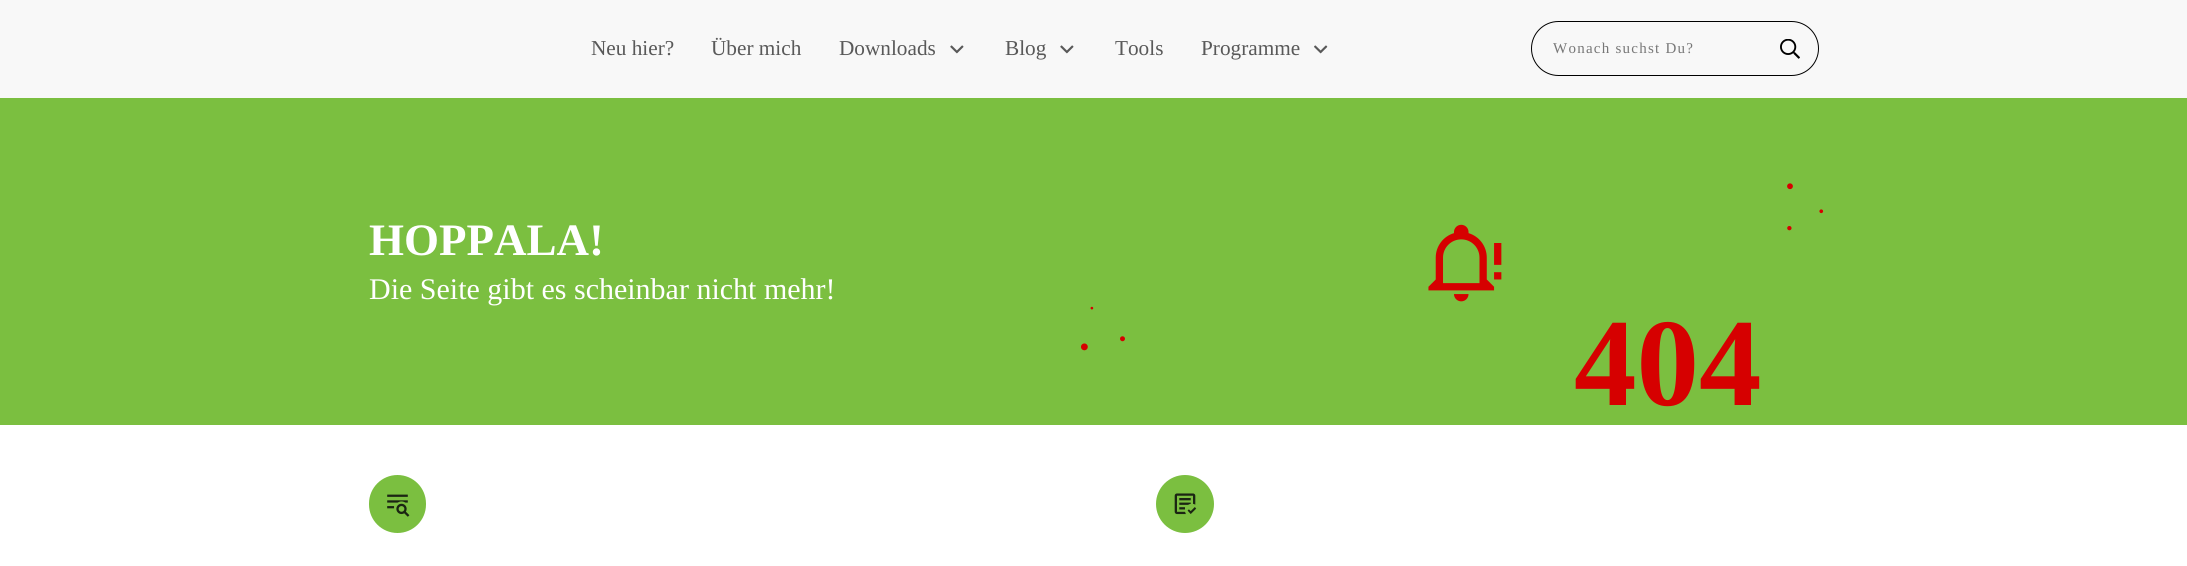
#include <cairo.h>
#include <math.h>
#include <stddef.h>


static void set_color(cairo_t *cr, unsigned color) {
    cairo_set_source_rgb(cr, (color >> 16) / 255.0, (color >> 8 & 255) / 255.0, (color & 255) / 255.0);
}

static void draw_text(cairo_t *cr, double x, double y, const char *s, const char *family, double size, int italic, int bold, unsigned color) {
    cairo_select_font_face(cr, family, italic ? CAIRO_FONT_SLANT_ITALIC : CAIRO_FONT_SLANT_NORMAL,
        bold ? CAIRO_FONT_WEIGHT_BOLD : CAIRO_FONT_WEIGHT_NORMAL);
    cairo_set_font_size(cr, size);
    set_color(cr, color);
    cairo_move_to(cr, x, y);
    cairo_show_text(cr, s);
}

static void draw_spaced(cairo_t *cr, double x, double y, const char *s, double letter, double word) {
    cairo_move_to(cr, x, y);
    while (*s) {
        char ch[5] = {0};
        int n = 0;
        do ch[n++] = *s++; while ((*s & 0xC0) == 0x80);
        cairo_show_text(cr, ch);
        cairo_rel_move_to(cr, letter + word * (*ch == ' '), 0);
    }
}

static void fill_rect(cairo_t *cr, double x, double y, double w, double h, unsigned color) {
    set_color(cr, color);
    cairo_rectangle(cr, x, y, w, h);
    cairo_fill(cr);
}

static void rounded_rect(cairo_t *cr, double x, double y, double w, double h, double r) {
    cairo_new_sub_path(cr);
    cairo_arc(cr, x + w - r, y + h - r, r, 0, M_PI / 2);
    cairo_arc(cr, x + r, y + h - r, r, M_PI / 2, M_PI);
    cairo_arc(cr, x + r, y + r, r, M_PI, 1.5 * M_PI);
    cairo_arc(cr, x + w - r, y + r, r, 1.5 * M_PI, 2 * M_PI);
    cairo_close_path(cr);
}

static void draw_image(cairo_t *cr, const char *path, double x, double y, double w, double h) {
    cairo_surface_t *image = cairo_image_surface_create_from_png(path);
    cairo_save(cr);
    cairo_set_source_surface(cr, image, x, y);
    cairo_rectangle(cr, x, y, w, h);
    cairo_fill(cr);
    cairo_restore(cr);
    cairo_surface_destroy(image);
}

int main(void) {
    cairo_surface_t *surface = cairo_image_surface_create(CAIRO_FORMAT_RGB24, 2187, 566);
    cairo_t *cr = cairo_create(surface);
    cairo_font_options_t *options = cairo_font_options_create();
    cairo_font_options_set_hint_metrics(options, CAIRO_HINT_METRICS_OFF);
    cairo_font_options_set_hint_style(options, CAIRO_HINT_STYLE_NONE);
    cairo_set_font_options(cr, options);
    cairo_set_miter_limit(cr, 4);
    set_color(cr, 0xFFFFFF);
    cairo_paint(cr);
    fill_rect(cr, 0, 0, 2187, 98, 0xF8F8F8);
    draw_text(cr, 591, 55, "Neu hier?", "Liberation Serif", 21.25, 0, 0, 0x595959);
    draw_text(cr, 711, 55, "Über mich", "Liberation Serif", 21.25, 0, 0, 0x595959);
    draw_text(cr, 839, 55, "Downloads", "Liberation Serif", 21.25, 0, 0, 0x595959);
    draw_image(cr, "assets/img1.png", 950, 45, 14, 9);
    draw_text(cr, 1005, 55, "Blog", "Liberation Serif", 21.25, 0, 0, 0x595959);
    draw_image(cr, "assets/img1.png", 1060, 45, 14, 9);
    draw_text(cr, 1115, 55, "Tools", "Liberation Serif", 21.25, 0, 0, 0x595959);
    draw_text(cr, 1201, 55, "Programme", "Liberation Serif", 21.25, 0, 0, 0x595959);
    draw_image(cr, "assets/img2.png", 1314, 45, 14, 9);
    rounded_rect(cr, 1531.5, 21.5, 287, 54, 27);
    set_color(cr, 0x000000);
    cairo_set_line_width(cr, 1);
    cairo_stroke(cr);
    cairo_set_font_size(cr, 15);
    set_color(cr, 0x777777);
    draw_spaced(cr, 1553, 53, "Wonach suchst Du?", 1.25, 0);
    draw_image(cr, "assets/img3.png", 1780, 39, 20, 20);
    fill_rect(cr, 0, 98, 2187, 327, 0x7BBF40);
    draw_text(cr, 369, 255, "HOPPALA!", "Liberation Serif", 45, 0, 1, 0xFFFFFF);
    draw_text(cr, 369, 299, "Die Seite gibt es scheinbar nicht mehr!", "Liberation Serif", 30, 0, 0, 0xFFFFFF);
    draw_image(cr, "assets/img4.png", 1787, 183, 6, 7);
    draw_image(cr, "assets/img5.png", 1819, 209, 5, 5);
    draw_image(cr, "assets/img6.png", 1787, 226, 5, 5);
    draw_image(cr, "assets/img7.png", 1428, 224, 74, 78);
    draw_image(cr, "assets/img8.png", 1090, 306, 4, 4);
    draw_image(cr, "assets/img9.png", 1120, 336, 5, 6);
    draw_image(cr, "assets/img10.png", 1081, 343, 7, 8);
    draw_text(cr, 1574, 405, "404", "Liberation Serif", 125, 0, 1, 0xD60000);
    set_color(cr, 0x7BBF40);
    rounded_rect(cr, 369, 475, 57, 58, 28.5);
    cairo_fill(cr);
    draw_image(cr, "assets/img11.png", 387, 494, 23, 23);
    cairo_arc(cr, 1185, 504, 29, 0, 2 * M_PI);
    cairo_fill(cr);
    draw_image(cr, "assets/img12.png", 1174, 493, 23, 22);
    cairo_surface_write_to_png(surface, "output.png");
    cairo_font_options_destroy(options);
    cairo_destroy(cr);
    cairo_surface_destroy(surface);
    return 0;
}
